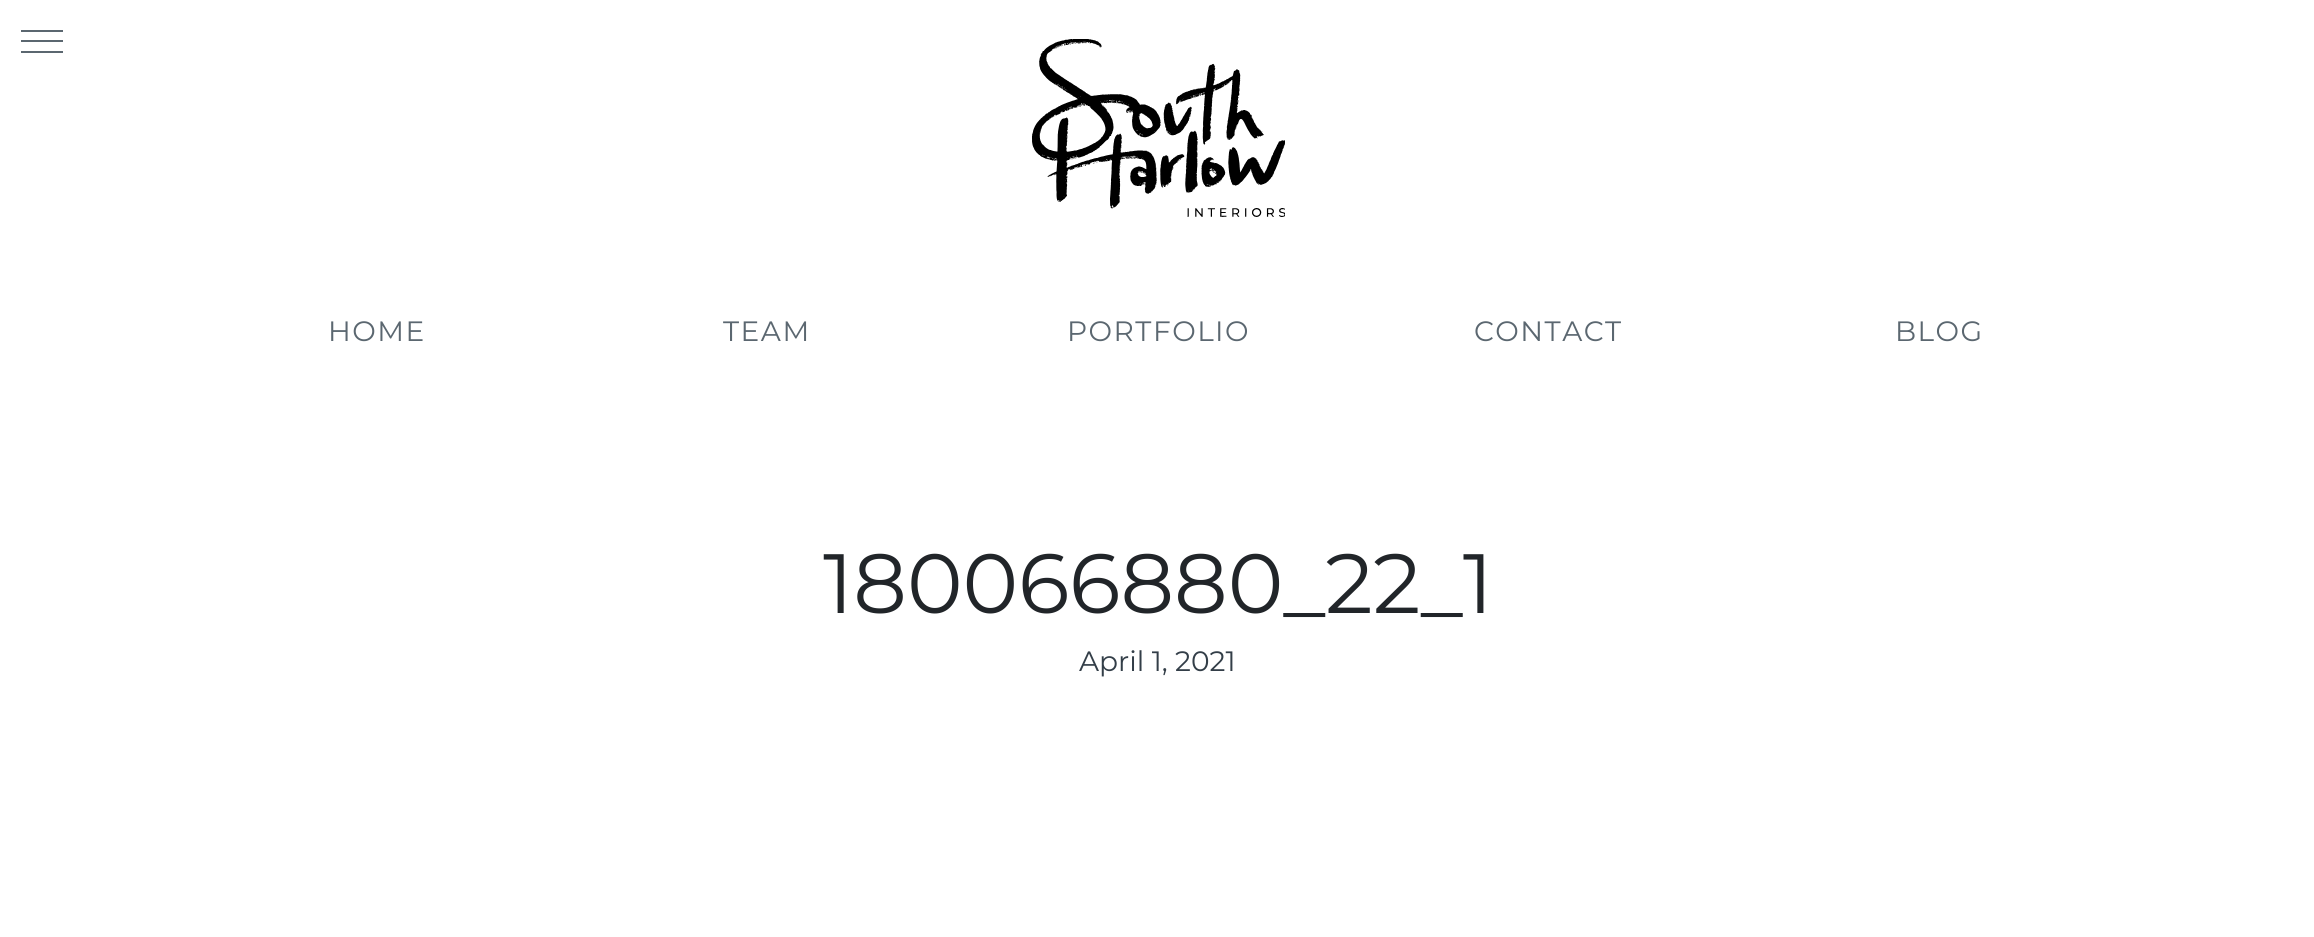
#include <cairo.h>
#include <math.h>
#include <stddef.h>


static void set_color(cairo_t *cr, unsigned color) {
    cairo_set_source_rgb(cr, (color >> 16) / 255.0, (color >> 8 & 255) / 255.0, (color & 255) / 255.0);
}

static void draw_text(cairo_t *cr, double x, double y, const char *s, const char *family, double size, int italic, int bold, unsigned color) {
    cairo_select_font_face(cr, family, italic ? CAIRO_FONT_SLANT_ITALIC : CAIRO_FONT_SLANT_NORMAL,
        bold ? CAIRO_FONT_WEIGHT_BOLD : CAIRO_FONT_WEIGHT_NORMAL);
    cairo_set_font_size(cr, size);
    set_color(cr, color);
    cairo_move_to(cr, x, y);
    cairo_show_text(cr, s);
}

static void draw_spaced(cairo_t *cr, double x, double y, const char *s, double letter, double word) {
    cairo_move_to(cr, x, y);
    while (*s) {
        char ch[5] = {0};
        int n = 0;
        do ch[n++] = *s++; while ((*s & 0xC0) == 0x80);
        cairo_show_text(cr, ch);
        cairo_rel_move_to(cr, letter + word * (*ch == ' '), 0);
    }
}

static void fill_rect(cairo_t *cr, double x, double y, double w, double h, unsigned color) {
    set_color(cr, color);
    cairo_rectangle(cr, x, y, w, h);
    cairo_fill(cr);
}

static void draw_image(cairo_t *cr, const char *path, double x, double y, double w, double h) {
    cairo_surface_t *image = cairo_image_surface_create_from_png(path);
    cairo_save(cr);
    cairo_set_source_surface(cr, image, x, y);
    cairo_rectangle(cr, x, y, w, h);
    cairo_fill(cr);
    cairo_restore(cr);
    cairo_surface_destroy(image);
}

int main(void) {
    cairo_surface_t *surface = cairo_image_surface_create(CAIRO_FORMAT_RGB24, 2314, 937);
    cairo_t *cr = cairo_create(surface);
    cairo_font_options_t *options = cairo_font_options_create();
    cairo_font_options_set_hint_metrics(options, CAIRO_HINT_METRICS_OFF);
    cairo_font_options_set_hint_style(options, CAIRO_HINT_STYLE_NONE);
    cairo_set_font_options(cr, options);
    cairo_set_miter_limit(cr, 4);
    set_color(cr, 0xFFFFFF);
    cairo_paint(cr);
    fill_rect(cr, 21, 40, 42, 2, 0x5B6770);
    fill_rect(cr, 21, 30, 42, 2, 0x5B6770);
    fill_rect(cr, 21, 51, 42, 2, 0x5B6770);
    draw_image(cr, "assets/img1.png", 1032, 39, 253, 178);
    cairo_select_font_face(cr, "Montserrat", CAIRO_FONT_SLANT_NORMAL, CAIRO_FONT_WEIGHT_NORMAL);
    cairo_set_font_size(cr, 28);
    draw_spaced(cr, 328, 341, "HOME", 1.5, 0);
    draw_spaced(cr, 723, 341, "TEAM", 1.5, 0);
    draw_spaced(cr, 1067, 341, "PORTFOLIO", 1.5, 0);
    draw_spaced(cr, 1474, 341, "CONTACT", 1.5, 0);
    draw_spaced(cr, 1895, 341, "BLOG", 1.5, 0);
    draw_text(cr, 823, 613, "180066880_22_1", "Montserrat", 84, 0, 0, 0x212529);
    draw_text(cr, 1079, 671, "April 1, 2021", "Montserrat", 28, 0, 0, 0x333E48);
    cairo_surface_write_to_png(surface, "output.png");
    cairo_font_options_destroy(options);
    cairo_destroy(cr);
    cairo_surface_destroy(surface);
    return 0;
}
